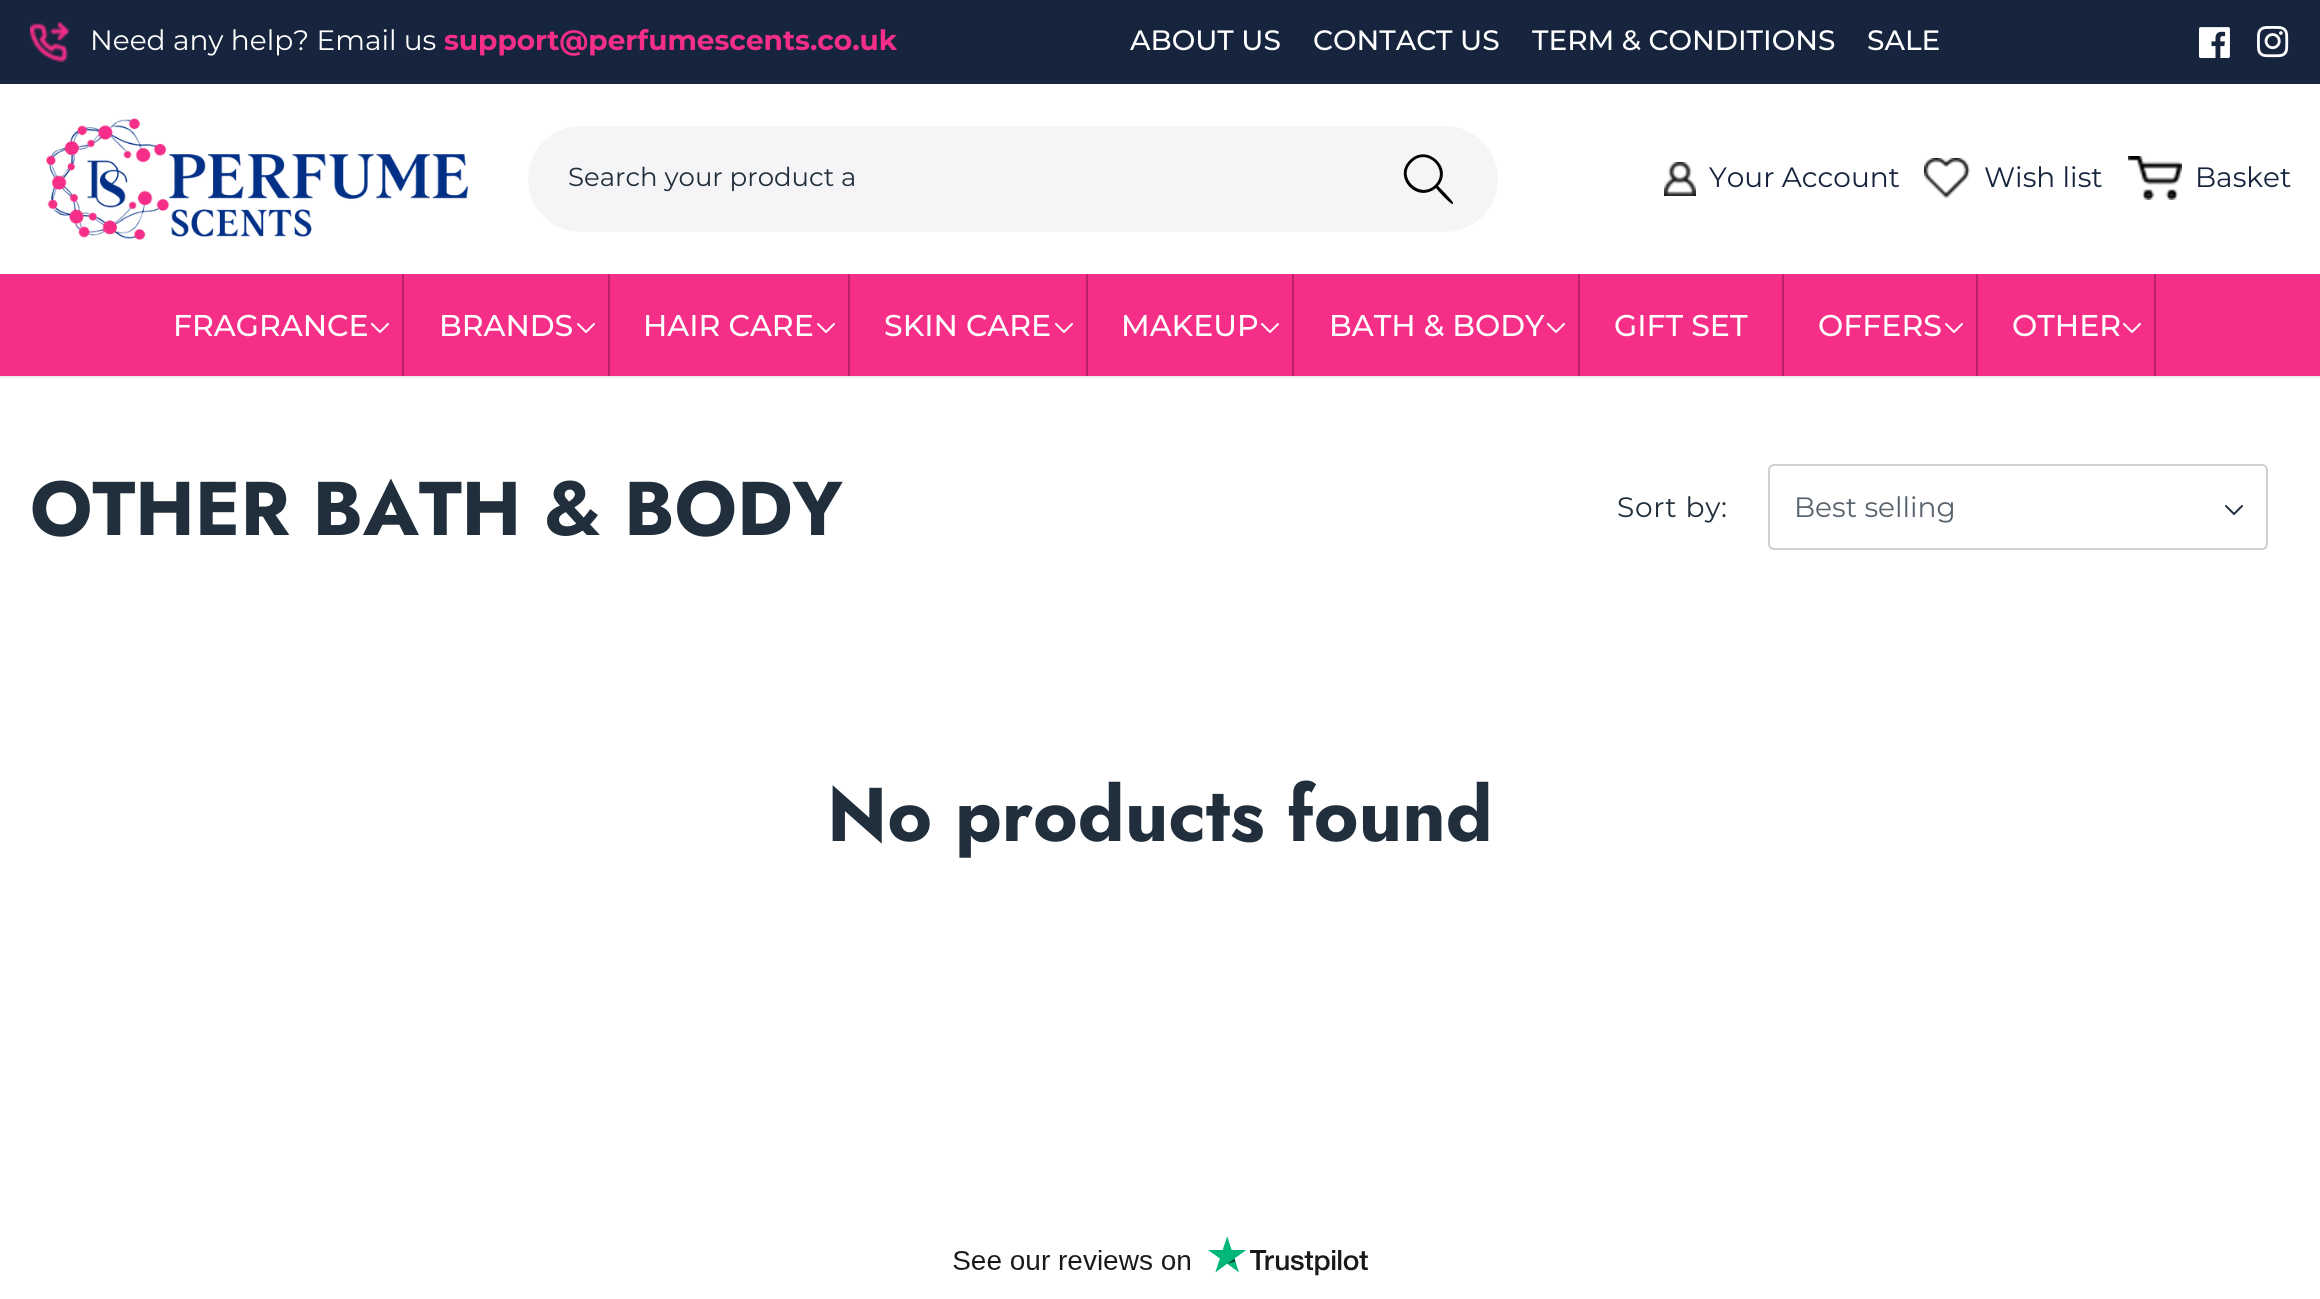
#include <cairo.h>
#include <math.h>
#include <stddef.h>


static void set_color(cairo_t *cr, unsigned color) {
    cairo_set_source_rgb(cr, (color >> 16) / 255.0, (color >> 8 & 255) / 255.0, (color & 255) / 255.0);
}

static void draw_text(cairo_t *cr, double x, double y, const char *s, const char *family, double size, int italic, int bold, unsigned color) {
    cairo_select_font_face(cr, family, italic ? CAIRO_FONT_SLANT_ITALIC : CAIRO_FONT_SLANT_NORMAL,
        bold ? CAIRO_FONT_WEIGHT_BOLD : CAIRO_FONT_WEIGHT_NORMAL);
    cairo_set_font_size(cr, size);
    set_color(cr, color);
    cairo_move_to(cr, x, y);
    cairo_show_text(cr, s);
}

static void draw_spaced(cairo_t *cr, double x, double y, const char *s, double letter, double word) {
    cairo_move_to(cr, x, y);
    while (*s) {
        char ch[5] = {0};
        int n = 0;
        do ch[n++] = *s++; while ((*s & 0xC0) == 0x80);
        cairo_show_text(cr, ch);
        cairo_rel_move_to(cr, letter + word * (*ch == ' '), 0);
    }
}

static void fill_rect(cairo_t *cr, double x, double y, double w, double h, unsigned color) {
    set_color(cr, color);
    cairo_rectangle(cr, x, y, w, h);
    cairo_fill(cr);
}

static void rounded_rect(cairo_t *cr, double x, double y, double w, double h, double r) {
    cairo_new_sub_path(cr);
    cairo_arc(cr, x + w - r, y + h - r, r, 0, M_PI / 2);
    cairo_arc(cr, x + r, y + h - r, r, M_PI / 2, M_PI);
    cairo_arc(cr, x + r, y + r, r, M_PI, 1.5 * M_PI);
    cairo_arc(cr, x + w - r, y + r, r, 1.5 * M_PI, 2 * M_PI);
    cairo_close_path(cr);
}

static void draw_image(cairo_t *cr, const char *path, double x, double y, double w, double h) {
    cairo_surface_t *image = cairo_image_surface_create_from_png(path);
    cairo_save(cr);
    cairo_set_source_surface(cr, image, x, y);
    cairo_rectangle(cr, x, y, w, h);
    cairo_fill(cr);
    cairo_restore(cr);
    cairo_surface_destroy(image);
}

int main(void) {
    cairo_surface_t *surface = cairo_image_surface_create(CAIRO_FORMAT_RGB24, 2320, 1299);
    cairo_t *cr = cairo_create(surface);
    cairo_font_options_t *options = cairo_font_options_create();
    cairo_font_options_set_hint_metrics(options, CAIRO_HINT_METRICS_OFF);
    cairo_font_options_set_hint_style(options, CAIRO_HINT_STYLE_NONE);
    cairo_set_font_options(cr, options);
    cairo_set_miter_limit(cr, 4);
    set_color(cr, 0xFFFFFF);
    cairo_paint(cr);
    fill_rect(cr, 0, 0, 2320, 84, 0x16243E);
    draw_image(cr, "assets/img1.png", 30, 22, 40, 40);
    draw_text(cr, 90, 50, "Need any help? Email us", "Montserrat", 28, 0, 0, 0xFFFFFF);
    draw_text(cr, 444, 50, "support@perfumescents.co.uk", "Montserrat", 28, 0, 1, 0xF52E88);
    draw_text(cr, 1130, 50, "ABOUT US", "Montserrat Medium", 28, 0, 0, 0xFFFFFF);
    draw_text(cr, 1313, 50, "CONTACT US", "Montserrat Medium", 28, 0, 0, 0xFFFFFF);
    draw_text(cr, 1532, 50, "TERM & CONDITIONS", "Montserrat Medium", 28, 0, 0, 0xFFFFFF);
    draw_text(cr, 1867, 50, "SALE", "Montserrat Medium", 28, 0, 0, 0xFFFFFF);
    draw_image(cr, "assets/img2.png", 2199, 27, 31, 31);
    draw_image(cr, "assets/img3.png", 2257, 26, 32, 32);
    fill_rect(cr, 0, 376, 2320, 2, 0xEDEEEF);
    draw_image(cr, "assets/img4.png", 46, 118, 422, 122);
    set_color(cr, 0xF5F5F7);
    rounded_rect(cr, 528, 126, 970, 106, 53);
    cairo_fill(cr);
    draw_text(cr, 568, 186, "Search your product a", "Montserrat", 26, 0, 0, 0x212F3C);
    set_color(cr, 0x000000);
    cairo_set_fill_rule(cr, CAIRO_FILL_RULE_EVEN_ODD);
    cairo_new_path(cr);
    cairo_move_to(cr, 1435, 185);
    cairo_curve_to(cr, 1420, 200, 1396, 177, 1412, 162);
    cairo_curve_to(cr, 1427, 147, 1450, 170, 1435, 185);
    cairo_close_path(cr);
    cairo_move_to(cr, 1436, 188);
    cairo_curve_to(cr, 1417, 204, 1392, 177, 1410, 160);
    cairo_curve_to(cr, 1427, 143, 1454, 168, 1438, 186);
    cairo_curve_to(cr, 1440, 188, 1453, 201, 1453, 203);
    cairo_line_to(cr, 1453, 204);
    cairo_curve_to(cr, 1451, 205, 1438, 191, 1436, 188);
    cairo_close_path(cr);
    cairo_fill(cr);
    draw_image(cr, "assets/img5.png", 1664, 162, 32, 34);
    draw_text(cr, 1709, 187, "Your Account", "Montserrat", 28, 0, 0, 0x16243E);
    draw_image(cr, "assets/img6.png", 1924, 158, 46, 40);
    draw_text(cr, 1984, 187, "Wish list", "Montserrat", 28, 0, 0, 0x16243E);
    draw_image(cr, "assets/img7.png", 2128, 156, 54, 44);
    draw_text(cr, 2195, 187, "Basket", "Montserrat", 28, 0, 0, 0x16243E);
    fill_rect(cr, 0, 274, 2320, 102, 0xF52E88);
    fill_rect(cr, 402, 274, 2, 102, 0xBA2367);
    draw_text(cr, 173, 336, "FRAGRANCE", "Montserrat Medium", 30, 0, 0, 0xFFFFFF);
    draw_image(cr, "assets/img8.png", 371, 323, 18, 10);
    fill_rect(cr, 608, 274, 2, 102, 0xBA2367);
    draw_text(cr, 439, 336, "BRANDS", "Montserrat Medium", 30, 0, 0, 0xFFFFFF);
    draw_image(cr, "assets/img8.png", 577, 323, 18, 10);
    fill_rect(cr, 848, 274, 2, 102, 0xBA2367);
    draw_text(cr, 643, 336, "HAIR CARE", "Montserrat Medium", 30, 0, 0, 0xFFFFFF);
    draw_image(cr, "assets/img8.png", 817, 323, 18, 10);
    fill_rect(cr, 1086, 274, 2, 102, 0xBA2367);
    draw_text(cr, 884, 336, "SKIN CARE", "Montserrat Medium", 30, 0, 0, 0xFFFFFF);
    draw_image(cr, "assets/img8.png", 1055, 323, 18, 10);
    fill_rect(cr, 1292, 274, 2, 102, 0xBA2367);
    draw_text(cr, 1121, 336, "MAKEUP", "Montserrat Medium", 30, 0, 0, 0xFFFFFF);
    draw_image(cr, "assets/img8.png", 1261, 323, 18, 10);
    fill_rect(cr, 1578, 274, 2, 102, 0xBA2367);
    draw_text(cr, 1329, 336, "BATH & BODY", "Montserrat Medium", 30, 0, 0, 0xFFFFFF);
    draw_image(cr, "assets/img8.png", 1547, 323, 18, 10);
    fill_rect(cr, 1782, 274, 2, 102, 0xBA2367);
    draw_text(cr, 1614, 336, "GIFT SET", "Montserrat Medium", 30, 0, 0, 0xFFFFFF);
    fill_rect(cr, 1976, 274, 2, 102, 0xBA2367);
    draw_text(cr, 1818, 336, "OFFERS", "Montserrat Medium", 30, 0, 0, 0xFFFFFF);
    draw_image(cr, "assets/img8.png", 1945, 323, 18, 10);
    fill_rect(cr, 2154, 274, 2, 102, 0xBA2367);
    draw_text(cr, 2012, 336, "OTHER", "Montserrat Medium", 30, 0, 0, 0xFFFFFF);
    draw_image(cr, "assets/img8.png", 2123, 323, 18, 10);
    draw_text(cr, 30, 535, "OTHER BATH & BODY", "Jost", 76, 0, 1, 0x212F3C);
    cairo_select_font_face(cr, "Montserrat", CAIRO_FONT_SLANT_NORMAL, CAIRO_FONT_WEIGHT_NORMAL);
    cairo_set_font_size(cr, 28);
    draw_spaced(cr, 1617, 517, "Sort by:", 0.75, 0);
    rounded_rect(cr, 1769, 465, 498, 84, 5);
    set_color(cr, 0xD0D0D0);
    cairo_stroke(cr);
    draw_text(cr, 1794, 517, "Best selling", "Montserrat", 28, 0, 0, 0x59636D);
    draw_image(cr, "assets/img9.png", 2225, 505, 18, 10);
    draw_text(cr, 827, 841, "No products found", "Jost", 76, 0, 1, 0x212F3C);
    draw_image(cr, "assets/img10.png", 953, 1236, 415, 40);
    cairo_surface_write_to_png(surface, "output.png");
    cairo_font_options_destroy(options);
    cairo_destroy(cr);
    cairo_surface_destroy(surface);
    return 0;
}
